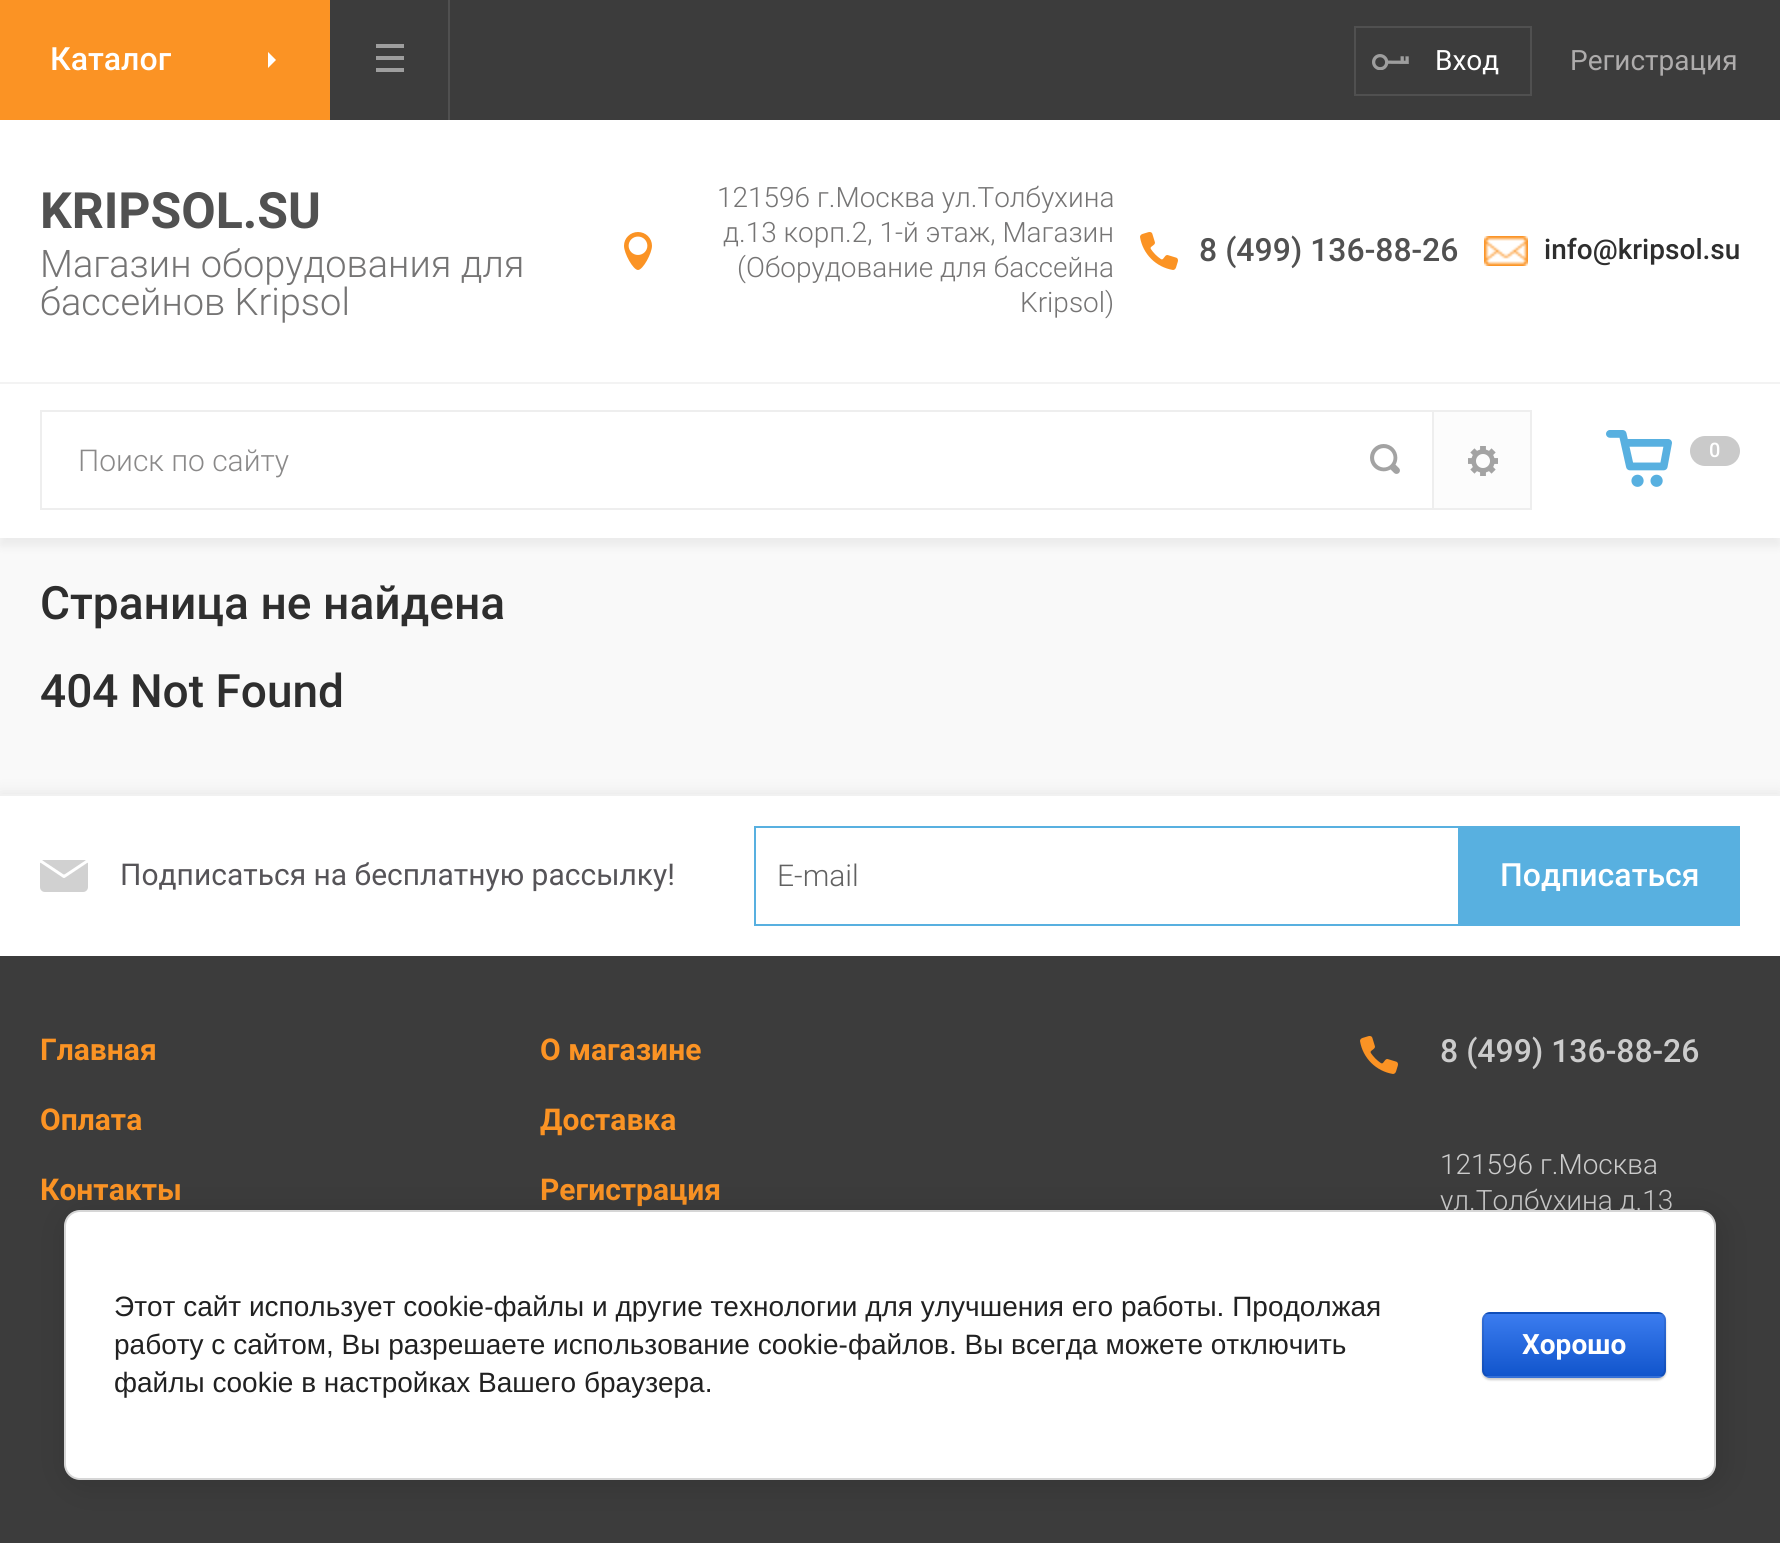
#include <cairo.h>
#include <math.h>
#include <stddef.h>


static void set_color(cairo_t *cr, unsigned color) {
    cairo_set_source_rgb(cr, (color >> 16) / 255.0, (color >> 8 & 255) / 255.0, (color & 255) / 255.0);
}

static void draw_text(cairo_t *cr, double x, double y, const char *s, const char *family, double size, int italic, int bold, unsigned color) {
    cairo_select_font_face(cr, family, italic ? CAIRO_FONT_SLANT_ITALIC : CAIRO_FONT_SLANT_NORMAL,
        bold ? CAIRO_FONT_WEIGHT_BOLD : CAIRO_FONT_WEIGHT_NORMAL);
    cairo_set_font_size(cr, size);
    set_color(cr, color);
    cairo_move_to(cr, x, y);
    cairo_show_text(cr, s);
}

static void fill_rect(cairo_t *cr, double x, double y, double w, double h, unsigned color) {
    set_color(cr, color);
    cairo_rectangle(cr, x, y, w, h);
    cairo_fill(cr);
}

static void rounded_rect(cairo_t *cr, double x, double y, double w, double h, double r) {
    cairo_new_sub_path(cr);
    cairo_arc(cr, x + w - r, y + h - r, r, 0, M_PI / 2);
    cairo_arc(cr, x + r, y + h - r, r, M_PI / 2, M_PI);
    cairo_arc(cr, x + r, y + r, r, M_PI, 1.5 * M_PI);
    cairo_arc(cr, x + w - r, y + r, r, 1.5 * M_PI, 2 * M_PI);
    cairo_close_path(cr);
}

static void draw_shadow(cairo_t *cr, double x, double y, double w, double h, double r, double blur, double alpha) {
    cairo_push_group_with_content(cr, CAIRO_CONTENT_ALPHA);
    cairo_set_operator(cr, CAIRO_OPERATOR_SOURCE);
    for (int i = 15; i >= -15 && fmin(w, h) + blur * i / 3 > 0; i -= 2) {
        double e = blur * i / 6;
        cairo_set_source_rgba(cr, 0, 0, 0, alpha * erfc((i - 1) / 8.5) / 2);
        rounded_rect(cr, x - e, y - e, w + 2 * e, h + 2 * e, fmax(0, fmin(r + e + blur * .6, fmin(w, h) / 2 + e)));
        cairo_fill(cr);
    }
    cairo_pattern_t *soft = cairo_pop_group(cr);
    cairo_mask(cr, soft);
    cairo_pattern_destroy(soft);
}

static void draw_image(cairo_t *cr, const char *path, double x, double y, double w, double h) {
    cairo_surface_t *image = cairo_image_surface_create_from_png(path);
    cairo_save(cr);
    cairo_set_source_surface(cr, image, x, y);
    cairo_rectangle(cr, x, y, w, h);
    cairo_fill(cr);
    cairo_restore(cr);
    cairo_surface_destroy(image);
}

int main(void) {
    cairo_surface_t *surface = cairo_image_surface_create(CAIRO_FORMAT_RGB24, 1780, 1543);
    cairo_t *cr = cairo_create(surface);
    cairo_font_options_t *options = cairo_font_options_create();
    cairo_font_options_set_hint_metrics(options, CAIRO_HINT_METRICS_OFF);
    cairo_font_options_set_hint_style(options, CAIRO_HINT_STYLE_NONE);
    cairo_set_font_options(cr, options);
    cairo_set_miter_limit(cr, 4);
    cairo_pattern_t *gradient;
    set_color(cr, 0xF9F9F9);
    cairo_paint(cr);
    fill_rect(cr, 330, 0, 1450, 120, 0x3C3C3C);
    fill_rect(cr, 0, 0, 330, 120, 0xFB9324);
    draw_text(cr, 50, 70, "Каталог", "Roboto Medium", 32, 0, 0, 0xFFFFFF);
    cairo_new_path(cr);
    cairo_move_to(cr, 268, 68);
    cairo_line_to(cr, 268, 52);
    cairo_line_to(cr, 276, 60);
    cairo_close_path(cr);
    cairo_fill(cr);
    fill_rect(cr, 448, 0, 2, 120, 0x505050);
    fill_rect(cr, 376, 44, 28, 4, 0x9E9E9E);
    fill_rect(cr, 376, 56, 28, 4, 0x9E9E9E);
    fill_rect(cr, 376, 68, 28, 4, 0x9E9E9E);
    draw_image(cr, "assets/img1.png", 1372, 54, 37, 16);
    cairo_rectangle(cr, 1355, 27, 176, 68);
    set_color(cr, 0x505050);
    cairo_stroke(cr);
    draw_text(cr, 1435, 70, "Вход", "Roboto", 28, 0, 0, 0xFFFFFF);
    draw_text(cr, 1570, 70, "Регистрация", "Roboto", 28, 0, 0, 0xAEACAC);
    fill_rect(cr, 0, 120, 1780, 262, 0xFFFFFF);
    draw_text(cr, 40, 228, "KRIPSOL.SU", "Roboto", 50, 0, 1, 0x515151);
    draw_text(cr, 40, 277, "Магазин оборудования для", "Roboto Light", 38, 0, 0, 0x757474);
    draw_text(cr, 40, 315, "бассейнов Kripsol", "Roboto Light", 38, 0, 0, 0x757474);
    draw_image(cr, "assets/img2.png", 624, 232, 28, 38);
    draw_text(cr, 717, 207, "121596 г.Москва ул.Толбухина", "Roboto Light", 28, 0, 0, 0x757474);
    draw_text(cr, 723, 242, "д.13 корп.2, 1-й этаж, Магазин", "Roboto Light", 28, 0, 0, 0x757474);
    draw_text(cr, 737, 277, "(Оборудование для бассейна", "Roboto Light", 28, 0, 0, 0x757474);
    draw_text(cr, 1020, 312, "Kripsol)", "Roboto Light", 28, 0, 0, 0x757474);
    draw_image(cr, "assets/img3.png", 1140, 232, 38, 38);
    draw_text(cr, 1199, 261, "8 (499) 136-88-26", "Roboto Medium", 32, 0, 0, 0x515151);
    draw_image(cr, "assets/img4.png", 1484, 236, 44, 30);
    draw_text(cr, 1544, 259, "info@kripsol.su", "Roboto Medium", 28, 0, 0, 0x2E2E2E);
    set_color(cr, 0x000000);
    draw_shadow(cr, 0, 390, 1780, 156, 0, 5, 0.06);
    fill_rect(cr, 0, 384, 1780, 154, 0xFFFFFF);
    fill_rect(cr, 0, 382, 1780, 2, 0xF3F3F3);
    cairo_rectangle(cr, 41, 411, 1490, 98);
    set_color(cr, 0xEEEEEE);
    cairo_stroke(cr);
    draw_text(cr, 78, 471, "Поиск по сайту", "Roboto Light", 30, 0, 0, 0x8A8989);
    draw_image(cr, "assets/img5.png", 1370, 444, 30, 30);
    cairo_set_source_rgba(cr, 0.933, 0.933, 0.933, 0.19);
    cairo_rectangle(cr, 1432, 412, 98, 96);
    cairo_fill(cr);
    draw_image(cr, "assets/img6.png", 1468, 446, 30, 30);
    set_color(cr, 0xEEEEEE);
    cairo_new_path(cr);
    cairo_move_to(cr, 1432, 510);
    cairo_line_to(cr, 1432, 410);
    cairo_line_to(cr, 1434, 412);
    cairo_line_to(cr, 1434, 510);
    cairo_close_path(cr);
    cairo_fill(cr);
    draw_image(cr, "assets/img7.png", 1606, 430, 66, 57);
    set_color(cr, 0xCACACA);
    rounded_rect(cr, 1690, 436, 50, 30, 15);
    cairo_fill(cr);
    draw_text(cr, 1709, 457, "0", "Roboto Medium", 20, 0, 0, 0xFFFFFF);
    draw_text(cr, 40, 619, "Страница не найдена", "Roboto Medium", 46, 0, 0, 0x2E2E2E);
    draw_text(cr, 40, 707, "404 Not Found", "Roboto Medium", 46, 0, 0, 0x2E2E2E);
    set_color(cr, 0x000000);
    draw_shadow(cr, 0, 794, 1780, 162, 0, 8, 0.09);
    fill_rect(cr, 0, 796, 1780, 160, 0xFFFFFF);
    fill_rect(cr, 0, 794, 1780, 2, 0xF1F1F1);
    draw_image(cr, "assets/img8.png", 40, 860, 48, 32);
    draw_text(cr, 120, 885, "Подписаться на бесплатную рассылку!", "Roboto", 30, 0, 0, 0x565458);
    cairo_rectangle(cr, 755, 827, 704, 98);
    set_color(cr, 0x58B0E0);
    cairo_stroke(cr);
    draw_text(cr, 777, 886, "E-mail", "Roboto Light", 30, 0, 0, 0x616161);
    fill_rect(cr, 1460, 826, 280, 100, 0x58B0E0);
    draw_text(cr, 1500, 886, "Подписаться", "Roboto Medium", 32, 0, 0, 0xFFFFFF);
    fill_rect(cr, 0, 956, 1780, 587, 0x3C3C3C);
    draw_text(cr, 40, 1060, "Главная", "Roboto", 30, 0, 1, 0xFB9324);
    draw_text(cr, 540, 1060, "О магазине", "Roboto", 30, 0, 1, 0xFB9324);
    draw_text(cr, 40, 1130, "Оплата", "Roboto", 30, 0, 1, 0xFB9324);
    draw_text(cr, 540, 1130, "Доставка", "Roboto", 30, 0, 1, 0xFB9324);
    draw_text(cr, 40, 1200, "Контакты", "Roboto", 30, 0, 1, 0xFB9324);
    draw_text(cr, 540, 1200, "Регистрация", "Roboto", 30, 0, 1, 0xFB9324);
    draw_image(cr, "assets/img9.png", 1360, 1036, 38, 38);
    draw_text(cr, 1440, 1062, "8 (499) 136-88-26", "Roboto Medium", 32, 0, 0, 0xCCCCCC);
    draw_text(cr, 1440, 1174, "121596 г.Москва", "Roboto Light", 28, 0, 0, 0xCCCCCC);
    draw_text(cr, 1440, 1210, "ул.Толбухина д.13", "Roboto Light", 28, 0, 0, 0xCCCCCC);
    set_color(cr, 0x000000);
    draw_shadow(cr, 68, 1214, 1652, 270, 16, 18, 0.14);
    set_color(cr, 0xFFFFFF);
    rounded_rect(cr, 65, 1211, 1650, 268, 15);
    cairo_fill_preserve(cr);
    set_color(cr, 0xD6D6D6);
    cairo_stroke(cr);
    draw_text(cr, 114, 1316, "Этот сайт использует cookie-файлы и другие технологии для улучшения его работы. Продолжая", "Liberation Sans", 28, 0, 0, 0x212121);
    draw_text(cr, 114, 1354, "работу с сайтом, Вы разрешаете использование cookie-файлов. Вы всегда можете отключить", "Liberation Sans", 28, 0, 0, 0x212121);
    draw_text(cr, 114, 1392, "файлы cookie в настройках Вашего браузера.", "Liberation Sans", 28, 0, 0, 0x212121);
    set_color(cr, 0x000000);
    draw_shadow(cr, 1482, 1314, 184, 66, 8, 1, 0.2);
    cairo_save(cr);
    rounded_rect(cr, 1482, 1312, 184, 66, 8);
    cairo_clip(cr);
    gradient = cairo_pattern_create_linear(1574, 1252, 1574, 1314);
    cairo_pattern_add_color_stop_rgba(gradient, 0, 0.231, 0.486, 0.937, 1);
    cairo_pattern_add_color_stop_rgba(gradient, 1, 0.067, 0.333, 0.8, 1);
    cairo_set_source(cr, gradient);
    cairo_pattern_destroy(gradient);
    cairo_rectangle(cr, 1482, 1312, 184, 2);
    cairo_fill(cr);
    gradient = cairo_pattern_create_linear(1574, 1314, 1574, 1376);
    cairo_pattern_add_color_stop_rgba(gradient, 0, 0.231, 0.486, 0.937, 1);
    cairo_pattern_add_color_stop_rgba(gradient, 1, 0.067, 0.333, 0.8, 1);
    cairo_set_source(cr, gradient);
    cairo_pattern_destroy(gradient);
    cairo_rectangle(cr, 1482, 1314, 184, 62);
    cairo_fill(cr);
    gradient = cairo_pattern_create_linear(1574, 1376, 1574, 1438);
    cairo_pattern_add_color_stop_rgba(gradient, 0, 0.231, 0.486, 0.937, 1);
    cairo_pattern_add_color_stop_rgba(gradient, 1, 0.067, 0.333, 0.8, 1);
    cairo_set_source(cr, gradient);
    cairo_pattern_destroy(gradient);
    cairo_rectangle(cr, 1482, 1376, 184, 2);
    cairo_fill(cr);
    cairo_restore(cr);
    rounded_rect(cr, 1483, 1313, 182, 64, 7);
    cairo_set_source_rgba(cr, 0, 0, 0, 0.1);
    cairo_stroke(cr);
    draw_text(cr, 1522, 1354, "Хорошо", "Roboto", 28, 0, 1, 0xFFFFFF);
    cairo_surface_write_to_png(surface, "output.png");
    cairo_font_options_destroy(options);
    cairo_destroy(cr);
    cairo_surface_destroy(surface);
    return 0;
}
